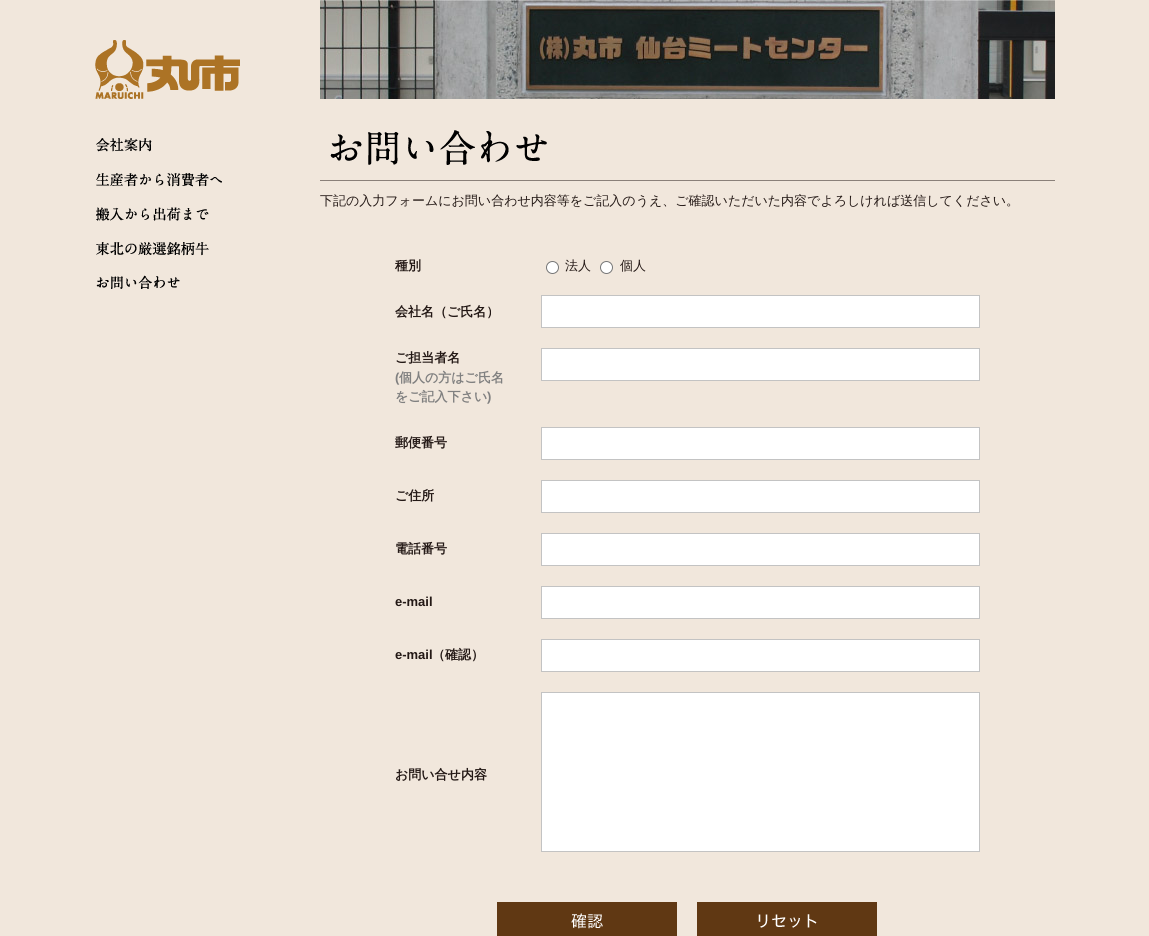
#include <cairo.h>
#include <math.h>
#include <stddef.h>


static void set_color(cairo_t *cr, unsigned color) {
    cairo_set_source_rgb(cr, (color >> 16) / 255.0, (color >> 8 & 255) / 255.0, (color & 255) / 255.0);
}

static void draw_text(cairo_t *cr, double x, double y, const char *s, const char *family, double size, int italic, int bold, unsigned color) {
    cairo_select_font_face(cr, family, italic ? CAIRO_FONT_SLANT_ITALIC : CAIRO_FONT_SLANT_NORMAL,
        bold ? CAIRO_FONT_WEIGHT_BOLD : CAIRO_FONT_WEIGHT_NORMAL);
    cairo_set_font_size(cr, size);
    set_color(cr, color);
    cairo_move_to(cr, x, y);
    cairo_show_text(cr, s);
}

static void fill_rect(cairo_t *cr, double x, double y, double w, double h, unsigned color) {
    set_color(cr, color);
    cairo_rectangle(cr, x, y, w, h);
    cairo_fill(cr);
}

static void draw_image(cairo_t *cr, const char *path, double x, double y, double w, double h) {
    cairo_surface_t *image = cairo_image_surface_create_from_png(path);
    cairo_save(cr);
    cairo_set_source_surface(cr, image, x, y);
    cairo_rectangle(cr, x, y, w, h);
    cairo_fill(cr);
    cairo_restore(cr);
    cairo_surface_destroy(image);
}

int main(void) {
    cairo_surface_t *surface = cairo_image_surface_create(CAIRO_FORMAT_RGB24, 1149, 936);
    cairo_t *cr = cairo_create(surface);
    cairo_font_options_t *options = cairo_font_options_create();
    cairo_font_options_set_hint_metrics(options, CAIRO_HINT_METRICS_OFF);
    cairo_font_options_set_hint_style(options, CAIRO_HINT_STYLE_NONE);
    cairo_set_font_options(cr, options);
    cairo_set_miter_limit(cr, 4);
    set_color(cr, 0xF1E7DC);
    cairo_paint(cr);
    draw_image(cr, "assets/img1.png", 95, 40, 145, 59);
    draw_image(cr, "assets/img2.png", 96, 138, 56, 14);
    draw_image(cr, "assets/img3.png", 96, 173, 126, 14);
    draw_image(cr, "assets/img4.png", 96, 207, 113, 14);
    draw_image(cr, "assets/img5.png", 96, 242, 113, 14);
    draw_image(cr, "assets/img6.png", 96, 275, 84, 14);
    draw_image(cr, "assets/img7.png", 320, 0, 735, 99);
    fill_rect(cr, 320, 180, 735, 1, 0x8A8079);
    draw_image(cr, "assets/img8.png", 330, 130, 217, 35);
    draw_text(cr, 320, 205, "下記の入力フォームにお問い合わせ内容等をご記入のうえ、ご確認いただいた内容でよろしければ送信してください。", "WenQuanYi Zen Hei Medium", 13, 0, 0, 0x231815);
    draw_text(cr, 395, 270, "種別", "WenQuanYi Zen Hei", 13, 0, 1, 0x231815);
    set_color(cr, 0xFFFFFF);
    cairo_new_path(cr);
    cairo_arc(cr, 552.5, 267.5, 6, 0, 2 * M_PI);
    cairo_fill_preserve(cr);
    set_color(cr, 0x767676);
    cairo_set_line_width(cr, 1);
    cairo_stroke(cr);
    draw_text(cr, 565, 270, "法人", "WenQuanYi Zen Hei Medium", 13, 0, 0, 0x231815);
    set_color(cr, 0xFFFFFF);
    cairo_new_path(cr);
    cairo_arc(cr, 606.5, 267.5, 6, 0, 2 * M_PI);
    cairo_fill_preserve(cr);
    set_color(cr, 0x767676);
    cairo_stroke(cr);
    draw_text(cr, 620, 270, "個人", "WenQuanYi Zen Hei Medium", 13, 0, 0, 0x231815);
    draw_text(cr, 395, 316, "会社名（ご氏名）", "WenQuanYi Zen Hei", 13, 0, 1, 0x231815);
    set_color(cr, 0xFFFFFF);
    cairo_rectangle(cr, 541.5, 295.5, 438, 32);
    cairo_fill_preserve(cr);
    set_color(cr, 0xC3C3C3);
    cairo_stroke(cr);
    draw_text(cr, 395, 362, "ご担当者名", "WenQuanYi Zen Hei", 13, 0, 1, 0x231815);
    draw_text(cr, 395, 382, "(", "Liberation Sans", 13, 0, 1, 0x808080);
    draw_text(cr, 399, 382, "個人の方はご氏名", "WenQuanYi Zen Hei", 13, 0, 1, 0x808080);
    draw_text(cr, 395, 401, "をご記入下さい", "WenQuanYi Zen Hei", 13, 0, 1, 0x808080);
    draw_text(cr, 487, 401, ")", "Liberation Sans", 13, 0, 1, 0x808080);
    set_color(cr, 0xFFFFFF);
    cairo_rectangle(cr, 541.5, 348.5, 438, 32);
    cairo_fill_preserve(cr);
    set_color(cr, 0xC3C3C3);
    cairo_stroke(cr);
    draw_text(cr, 395, 447, "郵便番号", "WenQuanYi Zen Hei", 13, 0, 1, 0x231815);
    set_color(cr, 0xFFFFFF);
    cairo_rectangle(cr, 541.5, 427.5, 438, 32);
    cairo_fill_preserve(cr);
    set_color(cr, 0xC3C3C3);
    cairo_stroke(cr);
    draw_text(cr, 395, 500, "ご住所", "WenQuanYi Zen Hei", 13, 0, 1, 0x231815);
    set_color(cr, 0xFFFFFF);
    cairo_rectangle(cr, 541.5, 480.5, 438, 32);
    cairo_fill_preserve(cr);
    set_color(cr, 0xC3C3C3);
    cairo_stroke(cr);
    draw_text(cr, 395, 553, "電話番号", "WenQuanYi Zen Hei", 13, 0, 1, 0x231815);
    set_color(cr, 0xFFFFFF);
    cairo_rectangle(cr, 541.5, 533.5, 438, 32);
    cairo_fill_preserve(cr);
    set_color(cr, 0xC3C3C3);
    cairo_stroke(cr);
    draw_text(cr, 395, 606, "e-mail", "Liberation Sans", 13, 0, 1, 0x231815);
    set_color(cr, 0xFFFFFF);
    cairo_rectangle(cr, 541.5, 586.5, 438, 32);
    cairo_fill_preserve(cr);
    set_color(cr, 0xC3C3C3);
    cairo_stroke(cr);
    draw_text(cr, 395, 659, "e-mail", "Liberation Sans", 13, 0, 1, 0x231815);
    draw_text(cr, 432, 659, "（確認）", "WenQuanYi Zen Hei", 13, 0, 1, 0x231815);
    set_color(cr, 0xFFFFFF);
    cairo_rectangle(cr, 541.5, 639.5, 438, 32);
    cairo_fill_preserve(cr);
    set_color(cr, 0xC3C3C3);
    cairo_stroke(cr);
    draw_text(cr, 395, 779, "お問い合せ内容", "WenQuanYi Zen Hei", 13, 0, 1, 0x231815);
    set_color(cr, 0xFFFFFF);
    cairo_rectangle(cr, 541.5, 692.5, 438, 159);
    cairo_fill_preserve(cr);
    set_color(cr, 0xC3C3C3);
    cairo_stroke(cr);
    draw_image(cr, "assets/img9.png", 497, 902, 180, 34);
    draw_image(cr, "assets/img10.png", 697, 902, 180, 34);
    cairo_surface_write_to_png(surface, "output.png");
    cairo_font_options_destroy(options);
    cairo_destroy(cr);
    cairo_surface_destroy(surface);
    return 0;
}
